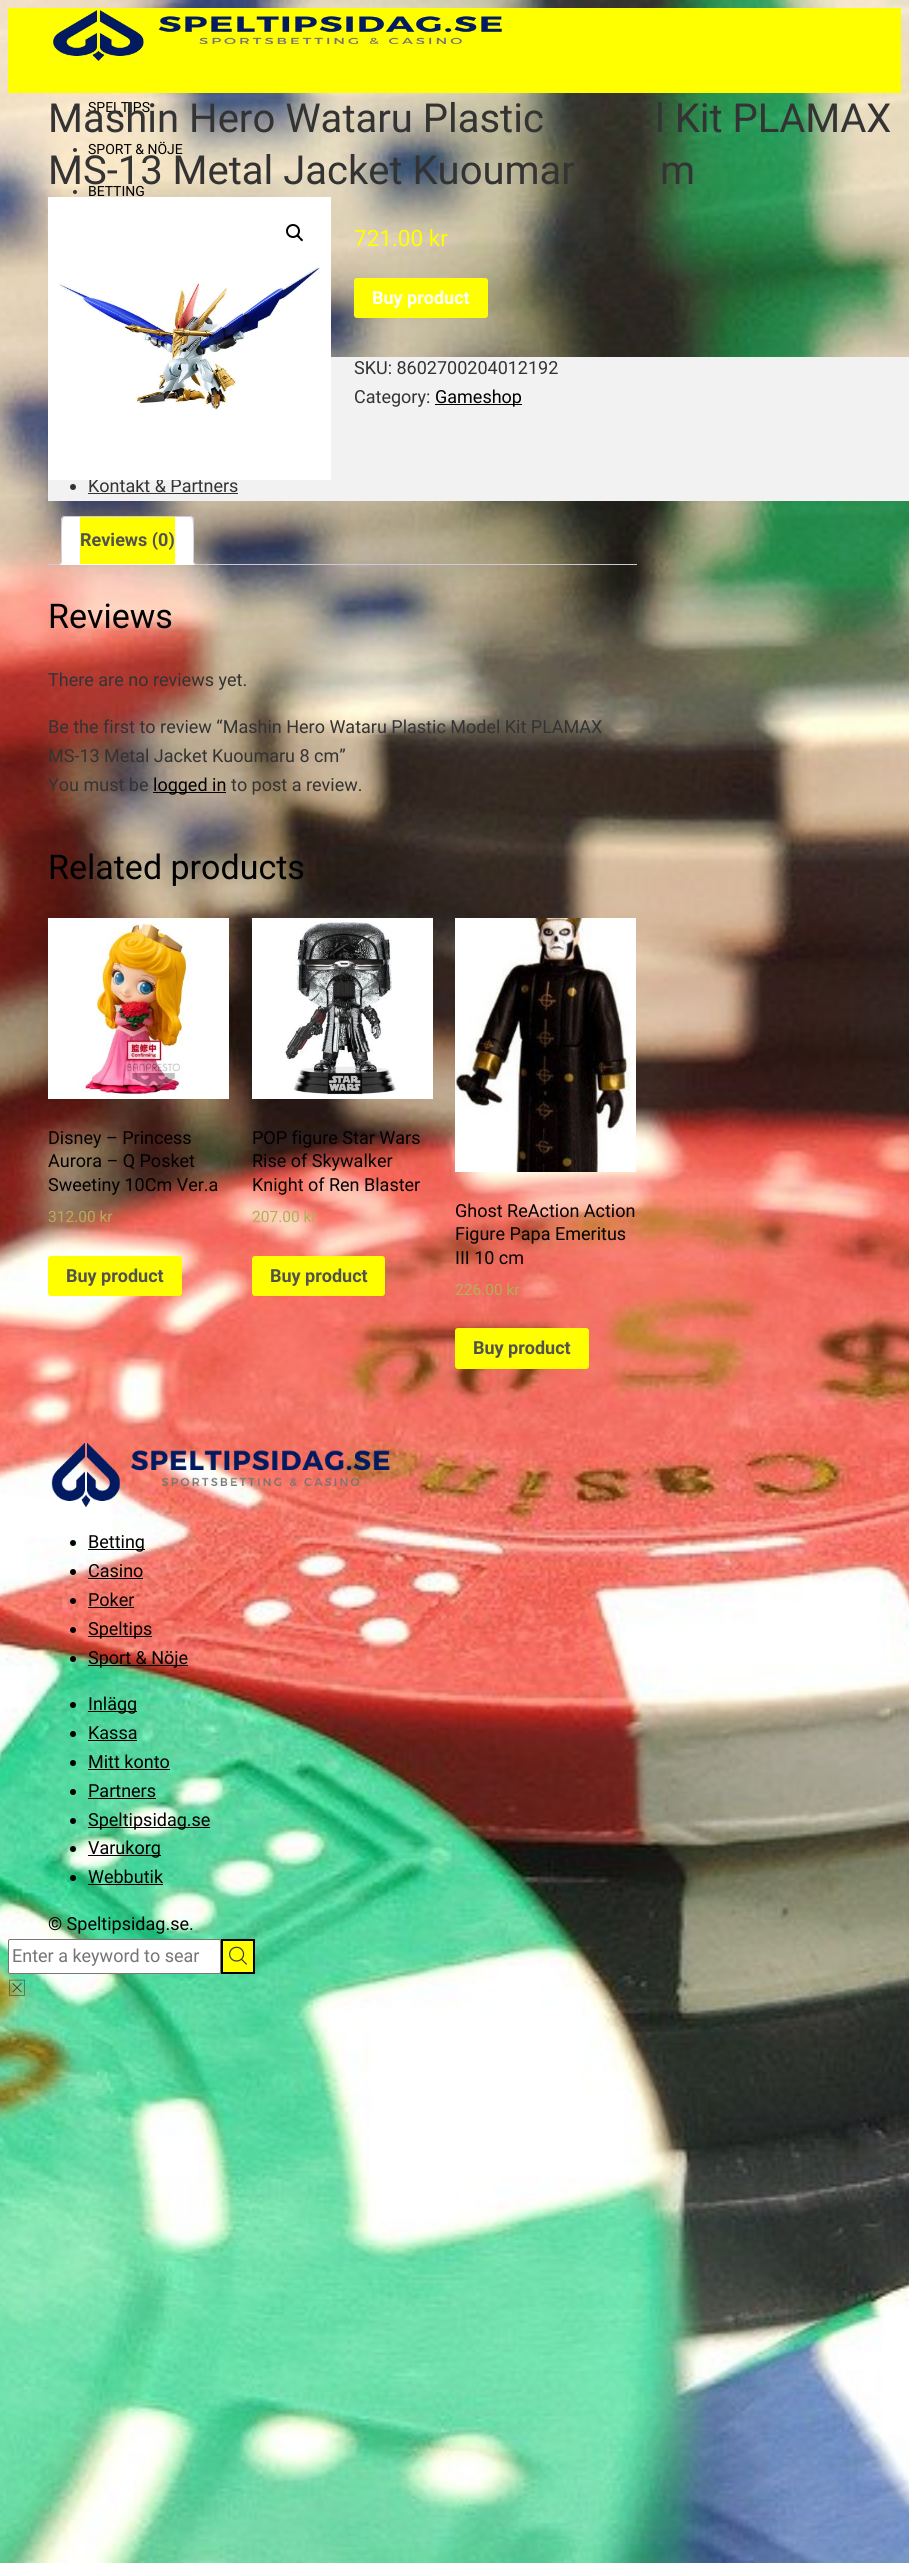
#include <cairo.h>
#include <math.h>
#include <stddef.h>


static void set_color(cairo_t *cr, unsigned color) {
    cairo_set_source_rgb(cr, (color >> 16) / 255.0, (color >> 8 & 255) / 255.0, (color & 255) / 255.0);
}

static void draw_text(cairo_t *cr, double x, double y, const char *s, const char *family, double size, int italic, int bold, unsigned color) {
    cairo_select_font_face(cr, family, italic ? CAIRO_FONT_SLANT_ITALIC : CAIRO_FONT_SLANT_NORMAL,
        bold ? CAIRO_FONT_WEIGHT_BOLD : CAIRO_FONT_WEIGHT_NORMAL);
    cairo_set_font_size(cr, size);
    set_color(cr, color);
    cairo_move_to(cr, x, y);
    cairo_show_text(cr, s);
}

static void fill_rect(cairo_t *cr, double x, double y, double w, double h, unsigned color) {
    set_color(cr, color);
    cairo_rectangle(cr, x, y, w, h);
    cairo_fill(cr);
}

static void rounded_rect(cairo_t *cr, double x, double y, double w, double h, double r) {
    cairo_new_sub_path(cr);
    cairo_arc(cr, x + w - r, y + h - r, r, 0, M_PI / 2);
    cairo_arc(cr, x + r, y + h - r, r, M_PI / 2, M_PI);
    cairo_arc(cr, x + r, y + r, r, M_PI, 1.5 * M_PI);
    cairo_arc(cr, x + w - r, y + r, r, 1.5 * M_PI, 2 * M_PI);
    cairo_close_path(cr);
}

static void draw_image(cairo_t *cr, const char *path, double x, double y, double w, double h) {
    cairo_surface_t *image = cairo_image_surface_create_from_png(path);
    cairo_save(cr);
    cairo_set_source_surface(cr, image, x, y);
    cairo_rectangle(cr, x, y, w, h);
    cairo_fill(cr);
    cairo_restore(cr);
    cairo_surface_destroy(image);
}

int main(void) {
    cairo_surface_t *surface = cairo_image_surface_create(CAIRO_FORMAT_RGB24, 909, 2563);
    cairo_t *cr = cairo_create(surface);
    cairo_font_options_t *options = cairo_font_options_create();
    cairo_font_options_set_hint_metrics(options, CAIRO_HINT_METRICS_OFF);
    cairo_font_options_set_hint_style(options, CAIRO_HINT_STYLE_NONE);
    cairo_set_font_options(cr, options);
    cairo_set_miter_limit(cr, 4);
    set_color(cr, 0xFFFFFF);
    cairo_paint(cr);
    draw_image(cr, "assets/img1.png", 0, 0, 909, 2563);
    fill_rect(cr, 8, 8, 893, 85, 0xFFFF00);
    draw_image(cr, "assets/img2.png", 53, 10, 449, 51);
    set_color(cr, 0x333333);
    cairo_arc(cr, 75, 108, 2, 0, 2 * M_PI);
    cairo_fill(cr);
    draw_text(cr, 88, 112, "SPELTIPS", "Roboto", 14, 0, 0, 0x000000);
    set_color(cr, 0x333333);
    cairo_new_path(cr);
    cairo_arc(cr, 75, 150, 2, 0, 2 * M_PI);
    cairo_fill(cr);
    draw_text(cr, 88, 154, "SPORT & NÖJE", "Roboto", 14, 0, 0, 0x000000);
    set_color(cr, 0x333333);
    cairo_new_path(cr);
    cairo_arc(cr, 75, 192, 2, 0, 2 * M_PI);
    cairo_fill(cr);
    draw_text(cr, 88, 196, "BETTING", "Roboto", 14, 0, 0, 0x000000);
    fill_rect(cr, 48, 357, 861, 144, 0xF2F2F2);
    set_color(cr, 0x333333);
    cairo_new_path(cr);
    cairo_arc(cr, 73, 487, 3, 0, 2 * M_PI);
    cairo_fill(cr);
    draw_text(cr, 88, 492, "Kontakt & Partners", "Roboto", 18, 0, 0, 0x333333);
    fill_rect(cr, 88, 493, 150, 1, 0x333333);
    draw_text(cr, 48, 132, "Mashin Hero Wataru Plastic", "Roboto", 40, 0, 0, 0x333333);
    draw_text(cr, 655, 132, "l Kit PLAMAX", "Roboto", 40, 0, 0, 0x333333);
    draw_text(cr, 48, 184, "MS-13 Metal Jacket Kuoumar", "Roboto", 40, 0, 0, 0x333333);
    draw_text(cr, 660, 184, "m", "Roboto", 40, 0, 0, 0x333333);
    draw_image(cr, "assets/img3.png", 48, 197, 283, 283);
    cairo_arc(cr, 293, 231, 6, 0, 2 * M_PI);
    set_color(cr, 0x000000);
    cairo_stroke(cr);
    cairo_new_path(cr);
    cairo_move_to(cr, 297, 235);
    cairo_curve_to(cr, 298.5, 234, 300, 236.5, 300.5, 237.5);
    cairo_curve_to(cr, 301, 238, 304, 239.5, 302.5, 241);
    cairo_curve_to(cr, 301.5, 242, 300, 239.5, 299, 238.5);
    cairo_curve_to(cr, 298.5, 238, 296, 236.5, 297, 235);
    cairo_close_path(cr);
    cairo_fill(cr);
    draw_text(cr, 354, 246, "721.00 kr", "Roboto", 22.5, 0, 0, 0xFFFF00);
    rounded_rect(cr, 354, 278, 134, 40, 3);
    cairo_fill(cr);
    draw_text(cr, 372, 304, "Buy product", "Roboto", 18, 0, 1, 0xFFFFFF);
    draw_text(cr, 354, 374, "SKU: 8602700204012192", "Roboto", 18, 0, 0, 0x333333);
    draw_text(cr, 354, 403, "Category:", "Roboto", 18, 0, 0, 0x333333);
    fill_rect(cr, 435, 404, 87, 1, 0x000000);
    draw_text(cr, 435, 403, "Gameshop", "Roboto", 18, 0, 0, 0x000000);
    fill_rect(cr, 48, 564, 589, 1, 0xCFC8D8);
    set_color(cr, 0xFFFFFF);
    cairo_new_path(cr);
    cairo_move_to(cr, 65, 516);
    cairo_line_to(cr, 190, 516);
    cairo_curve_to(cr, 192, 516, 194, 518, 194, 520);
    cairo_line_to(cr, 194, 565);
    cairo_line_to(cr, 61, 565);
    cairo_line_to(cr, 61, 520);
    cairo_curve_to(cr, 61, 518, 63, 516, 65, 516);
    cairo_close_path(cr);
    cairo_fill(cr);
    set_color(cr, 0xCFC8D8);
    cairo_new_path(cr);
    cairo_move_to(cr, 65, 516);
    cairo_line_to(cr, 62, 517);
    cairo_line_to(cr, 63, 518);
    cairo_line_to(cr, 65, 517);
    cairo_line_to(cr, 190, 517);
    cairo_line_to(cr, 192, 518);
    cairo_line_to(cr, 193, 517);
    cairo_line_to(cr, 190, 516);
    cairo_close_path(cr);
    cairo_fill(cr);
    cairo_new_path(cr);
    cairo_move_to(cr, 194, 565);
    cairo_line_to(cr, 194, 520);
    cairo_curve_to(cr, 194, 519, 194, 518, 193, 517);
    cairo_line_to(cr, 192, 518);
    cairo_curve_to(cr, 194, 520, 193, 559, 193, 564);
    cairo_close_path(cr);
    cairo_fill(cr);
    set_color(cr, 0xFFFFFF);
    cairo_new_path(cr);
    cairo_move_to(cr, 194, 565);
    cairo_line_to(cr, 193, 564);
    cairo_line_to(cr, 62, 564);
    cairo_line_to(cr, 61, 565);
    cairo_close_path(cr);
    cairo_fill(cr);
    set_color(cr, 0xCFC8D8);
    cairo_new_path(cr);
    cairo_move_to(cr, 61, 565);
    cairo_line_to(cr, 62, 564);
    cairo_curve_to(cr, 62, 559, 61, 520, 63, 518);
    cairo_line_to(cr, 62, 517);
    cairo_line_to(cr, 61, 520);
    cairo_close_path(cr);
    cairo_fill(cr);
    fill_rect(cr, 80, 517, 95, 47, 0xFFFF00);
    draw_text(cr, 80, 546, "Reviews (0)", "Roboto", 18, 0, 1, 0x515151);
    cairo_save(cr);
    cairo_rectangle(cr, 48, 516, 589, 49);
    cairo_clip(cr);
    set_color(cr, 0xFFFFFF);
    cairo_new_path(cr);
    cairo_move_to(cr, 59, 565);
    cairo_line_to(cr, 59, 567);
    cairo_curve_to(cr, 62.5, 567, 64, 565.5, 64, 562);
    cairo_line_to(cr, 62, 562);
    cairo_curve_to(cr, 61.5, 563.5, 60.5, 564.5, 59, 565);
    cairo_close_path(cr);
    cairo_fill(cr);
    cairo_restore(cr);
    set_color(cr, 0xCFC8D8);
    cairo_set_fill_rule(cr, CAIRO_FILL_RULE_EVEN_ODD);
    cairo_new_path(cr);
    cairo_move_to(cr, 57, 560);
    cairo_line_to(cr, 62, 560);
    cairo_curve_to(cr, 62, 563.5, 60.5, 565, 57, 565);
    cairo_close_path(cr);
    cairo_move_to(cr, 57, 560);
    cairo_line_to(cr, 61, 560);
    cairo_curve_to(cr, 61, 563, 60, 564, 57, 564);
    cairo_close_path(cr);
    cairo_fill(cr);
    cairo_save(cr);
    cairo_set_fill_rule(cr, CAIRO_FILL_RULE_WINDING);
    cairo_rectangle(cr, 48, 516, 589, 49);
    cairo_clip(cr);
    set_color(cr, 0xFFFFFF);
    cairo_new_path(cr);
    cairo_move_to(cr, 191, 562);
    cairo_curve_to(cr, 191, 565.5, 192.5, 567, 196, 567);
    cairo_line_to(cr, 196, 565);
    cairo_curve_to(cr, 194.5, 564.5, 193.5, 563.5, 193, 562);
    cairo_close_path(cr);
    cairo_fill(cr);
    cairo_restore(cr);
    cairo_new_path(cr);
    cairo_move_to(cr, 193, 560);
    cairo_line_to(cr, 198, 560);
    cairo_line_to(cr, 198, 565);
    cairo_curve_to(cr, 195.5, 565, 193, 564, 193, 561);
    cairo_close_path(cr);
    cairo_move_to(cr, 194, 560);
    cairo_line_to(cr, 198, 560);
    cairo_line_to(cr, 198, 564);
    cairo_curve_to(cr, 196, 564, 194, 563.5, 194, 561);
    cairo_close_path(cr);
    cairo_fill(cr);
    draw_text(cr, 48, 628, "Reviews", "Roboto", 34, 0, 0, 0x000000);
    draw_text(cr, 48, 686, "There are no reviews yet.", "Roboto", 18, 0, 0, 0x333333);
    draw_text(cr, 48, 733, "Be the first to review “Mashin Hero Wataru Plastic Model Kit PLAMAX", "Roboto", 18, 0, 0, 0x333333);
    draw_text(cr, 48, 762, "MS-13 Metal Jacket Kuoumaru 8 cm”", "Roboto", 18, 0, 0, 0x333333);
    draw_text(cr, 48, 791, "You must be", "Roboto", 18, 0, 0, 0x333333);
    fill_rect(cr, 153, 792, 73, 1, 0x000000);
    draw_text(cr, 153, 791, "logged in", "Roboto", 18, 0, 0, 0x000000);
    draw_text(cr, 231, 791, "to post a review.", "Roboto", 18, 0, 0, 0x333333);
    draw_text(cr, 48, 879, "Related products", "Roboto", 34, 0, 0, 0x000000);
    draw_image(cr, "assets/img4.png", 48, 918, 181, 181);
    draw_text(cr, 48, 1144, "Disney – Princess", "Roboto", 18, 0, 0, 0x000000);
    draw_text(cr, 48, 1167, "Aurora – Q Posket", "Roboto", 18, 0, 0, 0x000000);
    draw_text(cr, 48, 1191, "Sweetiny 10Cm Ver.a", "Roboto", 18, 0, 0, 0x000000);
    draw_text(cr, 48, 1222, "312.00 kr", "Roboto", 15.5, 0, 0, 0xB3AF54);
    set_color(cr, 0xFFFF00);
    rounded_rect(cr, 48, 1256, 134, 40, 3);
    cairo_fill(cr);
    draw_text(cr, 66, 1282, "Buy product", "Roboto", 18, 0, 1, 0x515151);
    draw_image(cr, "assets/img5.png", 252, 918, 181, 181);
    draw_text(cr, 252, 1144, "POP figure Star Wars", "Roboto", 18, 0, 0, 0x000000);
    draw_text(cr, 252, 1167, "Rise of Skywalker", "Roboto", 18, 0, 0, 0x000000);
    draw_text(cr, 252, 1191, "Knight of Ren Blaster", "Roboto", 18, 0, 0, 0x000000);
    draw_text(cr, 252, 1222, "207.00 kr", "Roboto", 15.5, 0, 0, 0xB3AF54);
    set_color(cr, 0xFFFF00);
    rounded_rect(cr, 252, 1256, 133, 40, 3);
    cairo_fill(cr);
    draw_text(cr, 270, 1282, "Buy product", "Roboto", 18, 0, 1, 0x515151);
    draw_image(cr, "assets/img6.png", 455, 918, 181, 254);
    draw_text(cr, 455, 1217, "Ghost ReAction Action", "Roboto", 18, 0, 0, 0x000000);
    draw_text(cr, 455, 1240, "Figure Papa Emeritus", "Roboto", 18, 0, 0, 0x000000);
    draw_text(cr, 455, 1264, "III 10 cm", "Roboto", 18, 0, 0, 0x000000);
    draw_text(cr, 455, 1295, "226.00 kr", "Roboto", 15.5, 0, 0, 0xB3AF54);
    set_color(cr, 0xFFFF00);
    rounded_rect(cr, 455, 1328, 134, 41, 3);
    cairo_fill(cr);
    draw_text(cr, 473, 1354, "Buy product", "Roboto", 18, 0, 1, 0x515151);
    draw_image(cr, "assets/img7.png", 51, 1442, 339, 65);
    set_color(cr, 0x000000);
    cairo_arc(cr, 73, 1543, 3, 0, 2 * M_PI);
    cairo_fill(cr);
    fill_rect(cr, 88, 1549, 57, 1, 0x000000);
    draw_text(cr, 88, 1548, "Betting", "Roboto", 18, 0, 0, 0x000000);
    cairo_new_path(cr);
    cairo_arc(cr, 73, 1572, 3, 0, 2 * M_PI);
    cairo_fill(cr);
    draw_text(cr, 88, 1577, "Casino", "Roboto", 18, 0, 0, 0x000000);
    fill_rect(cr, 88, 1578, 55, 1, 0x000000);
    cairo_new_path(cr);
    cairo_arc(cr, 73, 1601, 3, 0, 2 * M_PI);
    cairo_fill(cr);
    draw_text(cr, 88, 1606, "Poker", "Roboto", 18, 0, 0, 0x000000);
    fill_rect(cr, 88, 1607, 46, 1, 0x000000);
    cairo_new_path(cr);
    cairo_arc(cr, 73, 1630, 3, 0, 2 * M_PI);
    cairo_fill(cr);
    fill_rect(cr, 88, 1636, 64, 1, 0x000000);
    draw_text(cr, 88, 1635, "Speltips", "Roboto", 18, 0, 0, 0x000000);
    cairo_new_path(cr);
    cairo_arc(cr, 73, 1659, 3, 0, 2 * M_PI);
    cairo_fill(cr);
    fill_rect(cr, 88, 1665, 100, 1, 0x000000);
    draw_text(cr, 88, 1664, "Sport & Nöje", "Roboto", 18, 0, 0, 0x000000);
    cairo_new_path(cr);
    cairo_arc(cr, 73, 1705, 3, 0, 2 * M_PI);
    cairo_fill(cr);
    fill_rect(cr, 88, 1711, 49, 1, 0x000000);
    draw_text(cr, 88, 1710, "Inlägg", "Roboto", 18, 0, 0, 0x000000);
    cairo_new_path(cr);
    cairo_arc(cr, 73, 1734, 3, 0, 2 * M_PI);
    cairo_fill(cr);
    draw_text(cr, 88, 1739, "Kassa", "Roboto", 18, 0, 0, 0x000000);
    fill_rect(cr, 88, 1740, 49, 1, 0x000000);
    cairo_new_path(cr);
    cairo_arc(cr, 73, 1763, 3, 0, 2 * M_PI);
    cairo_fill(cr);
    draw_text(cr, 88, 1768, "Mitt konto", "Roboto", 18, 0, 0, 0x000000);
    fill_rect(cr, 88, 1769, 82, 1, 0x000000);
    cairo_new_path(cr);
    cairo_arc(cr, 73, 1792, 3, 0, 2 * M_PI);
    cairo_fill(cr);
    draw_text(cr, 88, 1797, "Partners", "Roboto", 18, 0, 0, 0x000000);
    fill_rect(cr, 88, 1798, 68, 1, 0x000000);
    cairo_new_path(cr);
    cairo_arc(cr, 73, 1821, 3, 0, 2 * M_PI);
    cairo_fill(cr);
    fill_rect(cr, 88, 1827, 122, 1, 0x000000);
    draw_text(cr, 88, 1826, "Speltipsidag.se", "Roboto", 18, 0, 0, 0x000000);
    cairo_new_path(cr);
    cairo_arc(cr, 73, 1849, 3, 0, 2 * M_PI);
    cairo_fill(cr);
    fill_rect(cr, 88, 1855, 73, 1, 0x000000);
    draw_text(cr, 88, 1854, "Varukorg", "Roboto", 18, 0, 0, 0x000000);
    cairo_new_path(cr);
    cairo_arc(cr, 73, 1878, 3, 0, 2 * M_PI);
    cairo_fill(cr);
    draw_text(cr, 88, 1883, "Webbutik", "Roboto", 18, 0, 0, 0x000000);
    fill_rect(cr, 88, 1884, 75, 1, 0x000000);
    draw_text(cr, 48, 1930, "© Speltipsidag.se.", "Roboto", 18, 0, 0, 0x000000);
    set_color(cr, 0xFFFFFF);
    rounded_rect(cr, 8.5, 1939.5, 212, 34, 1.5);
    cairo_fill_preserve(cr);
    set_color(cr, 0x767676);
    cairo_set_line_width(cr, 1);
    cairo_stroke(cr);
    draw_text(cr, 12, 1962, "Enter a keyword to sear", "Roboto", 18, 0, 0, 0x757575);
    set_color(cr, 0xFFFF00);
    cairo_rectangle(cr, 222, 1940, 32, 33);
    cairo_fill_preserve(cr);
    set_color(cr, 0x000000);
    cairo_set_line_width(cr, 2);
    cairo_stroke(cr);
    draw_image(cr, "assets/img8.png", 229, 1946, 18, 19);
    draw_image(cr, "assets/img9.png", 9, 1979, 16, 17);
    cairo_surface_write_to_png(surface, "output.png");
    cairo_font_options_destroy(options);
    cairo_destroy(cr);
    cairo_surface_destroy(surface);
    return 0;
}
